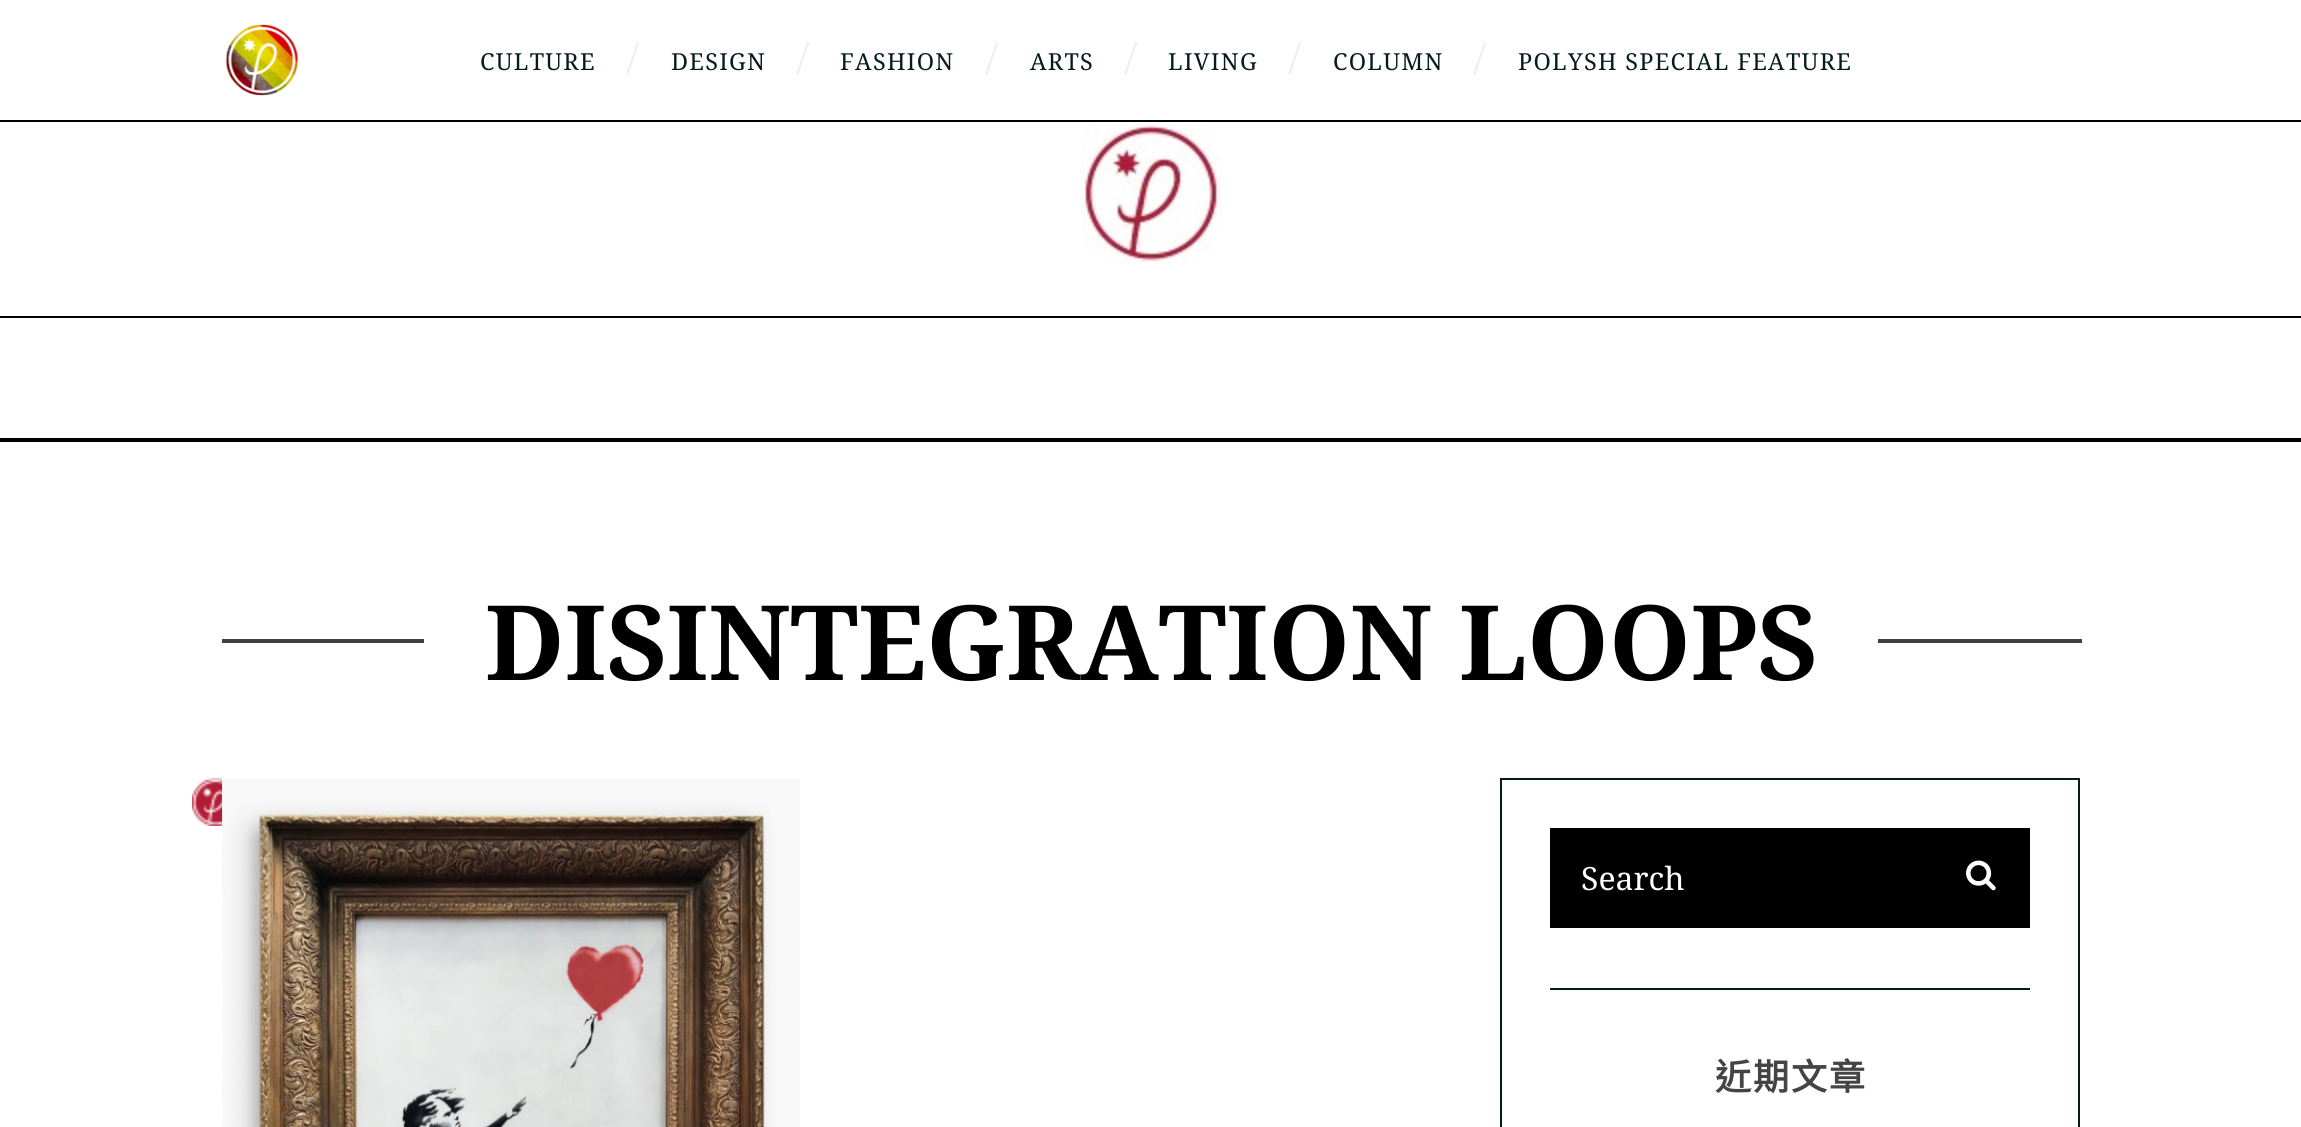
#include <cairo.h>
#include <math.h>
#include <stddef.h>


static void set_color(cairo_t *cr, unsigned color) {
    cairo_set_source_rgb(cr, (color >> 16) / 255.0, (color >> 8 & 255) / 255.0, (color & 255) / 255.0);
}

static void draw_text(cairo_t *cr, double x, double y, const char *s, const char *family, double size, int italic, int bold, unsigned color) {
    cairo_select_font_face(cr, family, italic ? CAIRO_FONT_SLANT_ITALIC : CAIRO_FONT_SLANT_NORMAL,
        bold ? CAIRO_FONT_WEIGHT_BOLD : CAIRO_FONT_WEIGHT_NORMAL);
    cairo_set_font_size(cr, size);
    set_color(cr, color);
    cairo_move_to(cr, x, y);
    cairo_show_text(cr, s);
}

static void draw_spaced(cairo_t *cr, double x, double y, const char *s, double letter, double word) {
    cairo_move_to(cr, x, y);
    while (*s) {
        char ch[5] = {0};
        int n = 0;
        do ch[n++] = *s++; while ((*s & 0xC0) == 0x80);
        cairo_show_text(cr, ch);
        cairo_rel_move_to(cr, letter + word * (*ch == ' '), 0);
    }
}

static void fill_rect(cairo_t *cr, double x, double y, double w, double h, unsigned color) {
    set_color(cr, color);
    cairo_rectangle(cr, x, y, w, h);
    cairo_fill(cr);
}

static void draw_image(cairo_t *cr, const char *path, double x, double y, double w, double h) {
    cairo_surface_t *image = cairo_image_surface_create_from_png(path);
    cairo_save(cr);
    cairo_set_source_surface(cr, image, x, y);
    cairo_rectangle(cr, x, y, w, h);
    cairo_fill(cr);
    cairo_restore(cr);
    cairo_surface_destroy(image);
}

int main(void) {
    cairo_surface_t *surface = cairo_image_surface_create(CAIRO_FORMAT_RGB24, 2301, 1127);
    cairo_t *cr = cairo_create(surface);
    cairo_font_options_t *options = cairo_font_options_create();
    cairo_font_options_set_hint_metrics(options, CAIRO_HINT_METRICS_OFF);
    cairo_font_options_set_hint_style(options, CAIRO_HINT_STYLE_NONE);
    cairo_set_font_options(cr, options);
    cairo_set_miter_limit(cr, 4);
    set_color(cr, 0xFFFFFF);
    cairo_paint(cr);
    fill_rect(cr, 0, 316, 2301, 2, 0x000000);
    fill_rect(cr, 0, 438, 2301, 4, 0x000000);
    fill_rect(cr, 0, 120, 2301, 2, 0x000000);
    draw_image(cr, "assets/img1.png", 225, 24, 74, 72);
    cairo_select_font_face(cr, "Noto Serif", CAIRO_FONT_SLANT_NORMAL, CAIRO_FONT_WEIGHT_NORMAL);
    cairo_set_font_size(cr, 23.4);
    set_color(cr, 0x061B1F);
    draw_spaced(cr, 480, 70, "CULTURE", 1.3, 0);
    cairo_select_font_face(cr, "Liberation Serif", CAIRO_FONT_SLANT_NORMAL, CAIRO_FONT_WEIGHT_NORMAL);
    cairo_set_font_size(cr, 48);
    set_color(cr, 0xEEEEEE);
    draw_spaced(cr, 626, 74, "/", 1.3, 0);
    cairo_select_font_face(cr, "Noto Serif", CAIRO_FONT_SLANT_NORMAL, CAIRO_FONT_WEIGHT_NORMAL);
    cairo_set_font_size(cr, 23.4);
    set_color(cr, 0x061B1F);
    draw_spaced(cr, 671, 70, "DESIGN", 1.3, 0);
    cairo_select_font_face(cr, "Liberation Serif", CAIRO_FONT_SLANT_NORMAL, CAIRO_FONT_WEIGHT_NORMAL);
    cairo_set_font_size(cr, 48);
    set_color(cr, 0xEEEEEE);
    draw_spaced(cr, 796, 74, "/", 1.3, 0);
    cairo_select_font_face(cr, "Noto Serif", CAIRO_FONT_SLANT_NORMAL, CAIRO_FONT_WEIGHT_NORMAL);
    cairo_set_font_size(cr, 23.4);
    set_color(cr, 0x061B1F);
    draw_spaced(cr, 840, 70, "FASHION", 1.3, 0);
    cairo_select_font_face(cr, "Liberation Serif", CAIRO_FONT_SLANT_NORMAL, CAIRO_FONT_WEIGHT_NORMAL);
    cairo_set_font_size(cr, 48);
    set_color(cr, 0xEEEEEE);
    draw_spaced(cr, 985, 74, "/", 1.3, 0);
    cairo_select_font_face(cr, "Noto Serif", CAIRO_FONT_SLANT_NORMAL, CAIRO_FONT_WEIGHT_NORMAL);
    cairo_set_font_size(cr, 23.4);
    set_color(cr, 0x061B1F);
    draw_spaced(cr, 1030, 70, "ARTS", 1.3, 0);
    cairo_select_font_face(cr, "Liberation Serif", CAIRO_FONT_SLANT_NORMAL, CAIRO_FONT_WEIGHT_NORMAL);
    cairo_set_font_size(cr, 48);
    set_color(cr, 0xEEEEEE);
    draw_spaced(cr, 1124, 74, "/", 1.3, 0);
    cairo_select_font_face(cr, "Noto Serif", CAIRO_FONT_SLANT_NORMAL, CAIRO_FONT_WEIGHT_NORMAL);
    cairo_set_font_size(cr, 23.4);
    set_color(cr, 0x061B1F);
    draw_spaced(cr, 1168, 70, "LIVING", 1.3, 0);
    cairo_select_font_face(cr, "Liberation Serif", CAIRO_FONT_SLANT_NORMAL, CAIRO_FONT_WEIGHT_NORMAL);
    cairo_set_font_size(cr, 48);
    set_color(cr, 0xEEEEEE);
    draw_spaced(cr, 1288, 74, "/", 1.3, 0);
    cairo_select_font_face(cr, "Noto Serif", CAIRO_FONT_SLANT_NORMAL, CAIRO_FONT_WEIGHT_NORMAL);
    cairo_set_font_size(cr, 23.4);
    set_color(cr, 0x061B1F);
    draw_spaced(cr, 1333, 70, "COLUMN", 1.3, 0);
    cairo_select_font_face(cr, "Liberation Serif", CAIRO_FONT_SLANT_NORMAL, CAIRO_FONT_WEIGHT_NORMAL);
    cairo_set_font_size(cr, 48);
    set_color(cr, 0xEEEEEE);
    draw_spaced(cr, 1473, 74, "/", 1.3, 0);
    cairo_select_font_face(cr, "Noto Serif", CAIRO_FONT_SLANT_NORMAL, CAIRO_FONT_WEIGHT_NORMAL);
    cairo_set_font_size(cr, 23.4);
    set_color(cr, 0x061B1F);
    draw_spaced(cr, 1518, 70, "POLYSH SPECIAL FEATURE", 1.3, 0);
    draw_image(cr, "assets/img2.png", 1082, 124, 140, 140);
    fill_rect(cr, 222, 639, 1860, 4, 0x404040);
    fill_rect(cr, 424, 639, 1454, 4, 0xFFFFFF);
    draw_text(cr, 485, 680, "DISINTEGRATION LOOPS", "Noto Serif", 104, 0, 1, 0x000000);
    draw_image(cr, "assets/img3.png", 192, 778, 31, 48);
    draw_image(cr, "assets/img4.png", 222, 778, 578, 349);
    cairo_rectangle(cr, 1501, 779, 578, 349);
    set_color(cr, 0x061B1F);
    cairo_stroke(cr);
    fill_rect(cr, 1550, 988, 480, 2, 0x061B1F);
    fill_rect(cr, 1550, 828, 480, 100, 0x000000);
    draw_text(cr, 1581, 890, "Search", "Noto Serif", 32, 0, 0, 0xFFFFFF);
    draw_image(cr, "assets/img5.png", 1966, 860, 30, 31);
    cairo_select_font_face(cr, "Noto Sans CJK TC", CAIRO_FONT_SLANT_NORMAL, CAIRO_FONT_WEIGHT_BOLD);
    cairo_set_font_size(cr, 36);
    set_color(cr, 0x444444);
    draw_spaced(cr, 1715, 1090, "近期文章", 2, 0);
    cairo_surface_write_to_png(surface, "output.png");
    cairo_font_options_destroy(options);
    cairo_destroy(cr);
    cairo_surface_destroy(surface);
    return 0;
}
